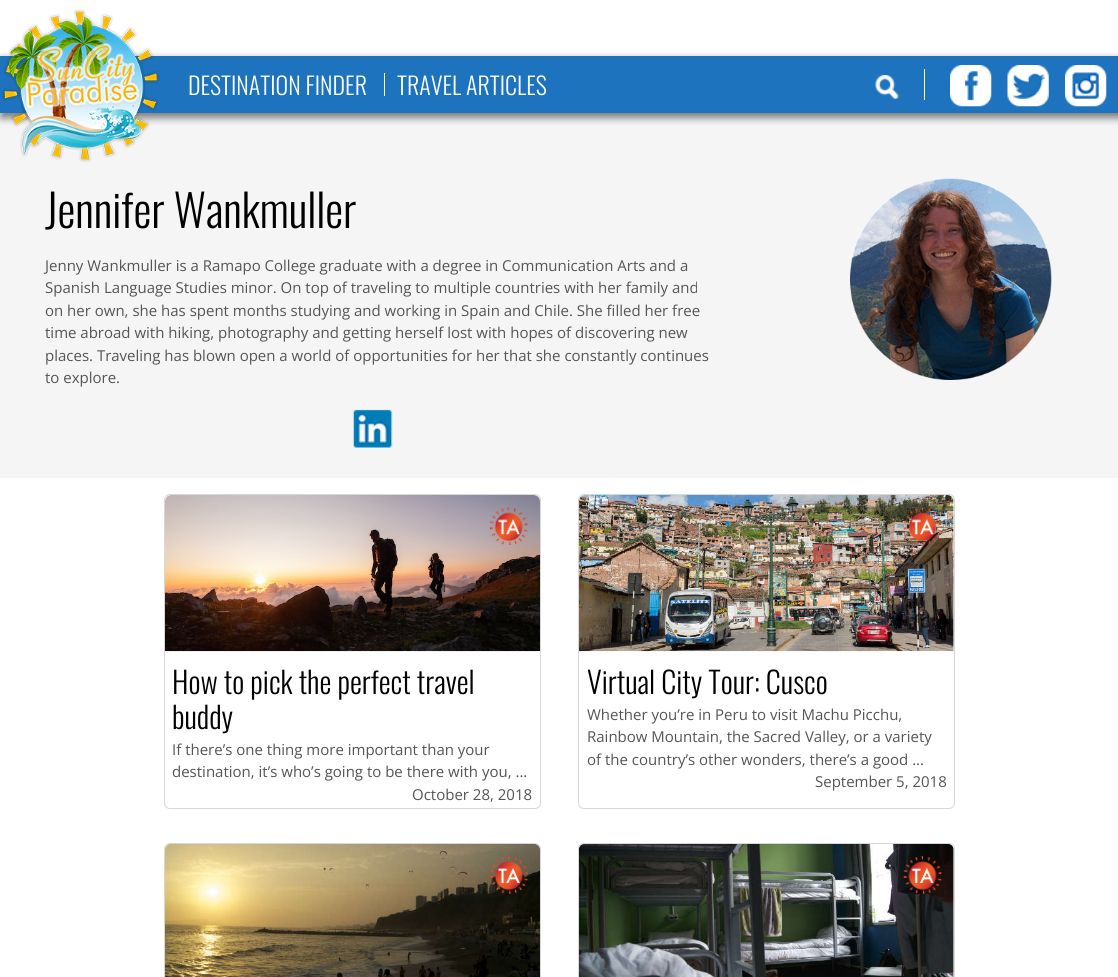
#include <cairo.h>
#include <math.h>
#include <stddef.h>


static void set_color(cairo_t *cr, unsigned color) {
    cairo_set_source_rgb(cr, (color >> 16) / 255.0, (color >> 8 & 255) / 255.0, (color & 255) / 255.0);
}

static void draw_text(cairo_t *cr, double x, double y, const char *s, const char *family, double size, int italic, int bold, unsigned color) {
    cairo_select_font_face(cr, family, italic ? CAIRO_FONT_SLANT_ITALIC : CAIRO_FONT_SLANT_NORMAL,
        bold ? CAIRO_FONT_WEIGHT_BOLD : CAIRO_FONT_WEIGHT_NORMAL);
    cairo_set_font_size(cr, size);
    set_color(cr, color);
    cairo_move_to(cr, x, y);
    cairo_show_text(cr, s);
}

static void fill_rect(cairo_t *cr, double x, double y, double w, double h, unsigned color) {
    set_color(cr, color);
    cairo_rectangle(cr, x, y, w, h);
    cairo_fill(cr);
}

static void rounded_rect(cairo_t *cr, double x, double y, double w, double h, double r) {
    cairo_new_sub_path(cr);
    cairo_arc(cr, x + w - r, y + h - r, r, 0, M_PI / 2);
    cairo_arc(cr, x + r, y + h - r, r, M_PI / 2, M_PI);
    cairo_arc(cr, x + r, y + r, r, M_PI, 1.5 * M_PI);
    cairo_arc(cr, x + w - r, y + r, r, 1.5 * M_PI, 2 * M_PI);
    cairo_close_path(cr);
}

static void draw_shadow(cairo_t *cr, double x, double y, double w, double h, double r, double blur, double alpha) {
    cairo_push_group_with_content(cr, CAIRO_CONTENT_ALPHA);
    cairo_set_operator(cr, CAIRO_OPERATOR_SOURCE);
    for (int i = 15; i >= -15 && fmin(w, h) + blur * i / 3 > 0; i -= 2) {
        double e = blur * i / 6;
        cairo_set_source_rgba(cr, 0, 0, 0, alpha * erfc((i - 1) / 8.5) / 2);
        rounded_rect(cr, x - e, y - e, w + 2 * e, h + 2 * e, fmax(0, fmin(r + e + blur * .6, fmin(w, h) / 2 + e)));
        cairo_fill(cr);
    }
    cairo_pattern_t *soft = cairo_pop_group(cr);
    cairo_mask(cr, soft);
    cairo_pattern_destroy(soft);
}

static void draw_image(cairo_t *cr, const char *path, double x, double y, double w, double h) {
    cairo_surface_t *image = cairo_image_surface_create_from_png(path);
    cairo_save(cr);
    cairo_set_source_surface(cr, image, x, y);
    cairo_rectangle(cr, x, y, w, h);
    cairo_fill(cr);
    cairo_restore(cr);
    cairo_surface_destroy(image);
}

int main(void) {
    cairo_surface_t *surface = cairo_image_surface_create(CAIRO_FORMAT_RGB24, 1118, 977);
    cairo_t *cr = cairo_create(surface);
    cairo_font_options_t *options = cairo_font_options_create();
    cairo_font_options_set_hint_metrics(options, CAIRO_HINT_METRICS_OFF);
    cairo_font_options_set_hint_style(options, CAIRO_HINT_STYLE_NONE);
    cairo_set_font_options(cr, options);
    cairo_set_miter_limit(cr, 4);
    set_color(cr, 0xFFFFFF);
    cairo_paint(cr);
    fill_rect(cr, 0, 113, 1118, 365, 0xF5F5F5);
    set_color(cr, 0x000000);
    draw_shadow(cr, 1, 59, 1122, 59, 0, 4, 0.5);
    fill_rect(cr, 0, 56, 1118, 57, 0x1E73BE);
    draw_image(cr, "assets/img1.png", 2, 9, 158, 153);
    draw_text(cr, 188, 95, "DESTINATION FINDER", "Oswald Light", 24, 0, 0, 0xFFFFFF);
    fill_rect(cr, 384, 73, 1, 23, 0xFFFFFF);
    draw_text(cr, 397, 95, "TRAVEL ARTICLES", "Oswald Light", 24, 0, 0, 0xFFFFFF);
    fill_rect(cr, 924, 69, 1, 31, 0xFFFFFF);
    draw_image(cr, "assets/img2.png", 875, 75, 24, 24);
    draw_image(cr, "assets/img3.png", 950, 65, 42, 42);
    draw_image(cr, "assets/img4.png", 1007, 65, 42, 42);
    draw_image(cr, "assets/img5.png", 1065, 65, 42, 42);
    draw_text(cr, 45, 228, "Jennifer Wankmuller", "Oswald Light", 45, 0, 0, 0x000000);
    draw_text(cr, 45, 271, "Jenny Wankmuller is a Ramapo College graduate with a degree in Communication Arts and a", "Open Sans", 15, 0, 0, 0x555555);
    draw_text(cr, 45, 293, "Spanish Language Studies minor. On top of traveling to multiple countries with her family and", "Open Sans", 15, 0, 0, 0x555555);
    draw_text(cr, 45, 316, "on her own, she has spent months studying and working in Spain and Chile. She filled her free", "Open Sans", 15, 0, 0, 0x555555);
    draw_text(cr, 45, 338, "time abroad with hiking, photography and getting herself lost with hopes of discovering new", "Open Sans", 15, 0, 0, 0x555555);
    draw_text(cr, 45, 361, "places. Traveling has blown open a world of opportunities for her that she constantly continues", "Open Sans", 15, 0, 0, 0x555555);
    draw_text(cr, 45, 383, "to explore.", "Open Sans", 15, 0, 0, 0x555555);
    draw_image(cr, "assets/img6.png", 353, 409, 40, 39);
    draw_image(cr, "assets/img7.png", 850, 178, 202, 202);
    rounded_rect(cr, 164.5, 494.5, 376, 314, 5.5);
    set_color(cr, 0xD8D8D8);
    cairo_set_line_width(cr, 1);
    cairo_stroke(cr);
    draw_image(cr, "assets/img8.png", 165, 495, 375, 157);
    draw_image(cr, "assets/img9.png", 490, 507, 38, 38);
    draw_text(cr, 172, 694, "How to pick the perfect travel", "Oswald Light", 30, 0, 0, 0x000000);
    draw_text(cr, 172, 729, "buddy", "Oswald Light", 30, 0, 0, 0x000000);
    draw_text(cr, 172, 755, "If there’s one thing more important than your", "Open Sans", 15, 0, 0, 0x555555);
    draw_text(cr, 172, 777, "destination, it’s who’s going to be there with you, ...", "Open Sans", 15, 0, 0, 0x555555);
    draw_text(cr, 412, 800, "October 28, 2018", "Open Sans", 15, 0, 0, 0x555555);
    rounded_rect(cr, 578.5, 494.5, 376, 314, 5.5);
    set_color(cr, 0xD8D8D8);
    cairo_stroke(cr);
    draw_image(cr, "assets/img10.png", 579, 495, 375, 157);
    draw_image(cr, "assets/img11.png", 903, 507, 39, 38);
    draw_text(cr, 587, 694, "Virtual City Tour: Cusco", "Oswald Light", 30, 0, 0, 0x000000);
    draw_text(cr, 587, 720, "Whether you’re in Peru to visit Machu Picchu,", "Open Sans", 15, 0, 0, 0x555555);
    draw_text(cr, 587, 742, "Rainbow Mountain, the Sacred Valley, or a variety", "Open Sans", 15, 0, 0, 0x555555);
    draw_text(cr, 587, 765, "of the country’s other wonders, there’s a good ...", "Open Sans", 15, 0, 0, 0x555555);
    draw_text(cr, 815, 787, "September 5, 2018", "Open Sans", 15, 0, 0, 0x555555);
    rounded_rect(cr, 164.5, 843.5, 376, 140, 5.5);
    set_color(cr, 0xD8D8D8);
    cairo_stroke(cr);
    draw_image(cr, "assets/img12.png", 165, 844, 375, 133);
    draw_image(cr, "assets/img13.png", 490, 856, 38, 38);
    rounded_rect(cr, 578.5, 843.5, 376, 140, 5.5);
    cairo_stroke(cr);
    draw_image(cr, "assets/img14.png", 579, 844, 375, 133);
    draw_image(cr, "assets/img15.png", 903, 856, 39, 38);
    cairo_surface_write_to_png(surface, "output.png");
    cairo_font_options_destroy(options);
    cairo_destroy(cr);
    cairo_surface_destroy(surface);
    return 0;
}
